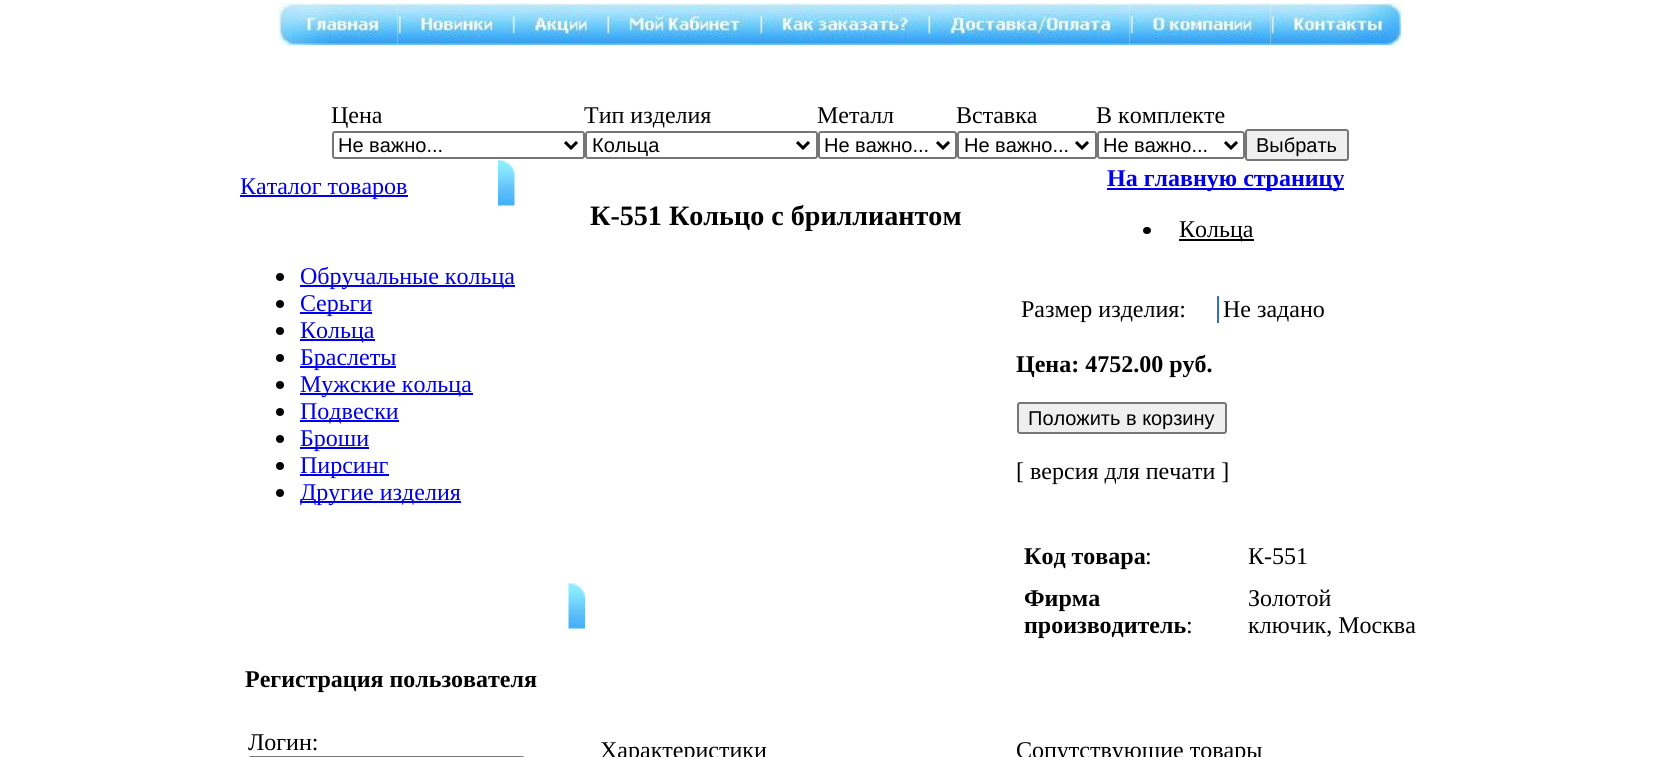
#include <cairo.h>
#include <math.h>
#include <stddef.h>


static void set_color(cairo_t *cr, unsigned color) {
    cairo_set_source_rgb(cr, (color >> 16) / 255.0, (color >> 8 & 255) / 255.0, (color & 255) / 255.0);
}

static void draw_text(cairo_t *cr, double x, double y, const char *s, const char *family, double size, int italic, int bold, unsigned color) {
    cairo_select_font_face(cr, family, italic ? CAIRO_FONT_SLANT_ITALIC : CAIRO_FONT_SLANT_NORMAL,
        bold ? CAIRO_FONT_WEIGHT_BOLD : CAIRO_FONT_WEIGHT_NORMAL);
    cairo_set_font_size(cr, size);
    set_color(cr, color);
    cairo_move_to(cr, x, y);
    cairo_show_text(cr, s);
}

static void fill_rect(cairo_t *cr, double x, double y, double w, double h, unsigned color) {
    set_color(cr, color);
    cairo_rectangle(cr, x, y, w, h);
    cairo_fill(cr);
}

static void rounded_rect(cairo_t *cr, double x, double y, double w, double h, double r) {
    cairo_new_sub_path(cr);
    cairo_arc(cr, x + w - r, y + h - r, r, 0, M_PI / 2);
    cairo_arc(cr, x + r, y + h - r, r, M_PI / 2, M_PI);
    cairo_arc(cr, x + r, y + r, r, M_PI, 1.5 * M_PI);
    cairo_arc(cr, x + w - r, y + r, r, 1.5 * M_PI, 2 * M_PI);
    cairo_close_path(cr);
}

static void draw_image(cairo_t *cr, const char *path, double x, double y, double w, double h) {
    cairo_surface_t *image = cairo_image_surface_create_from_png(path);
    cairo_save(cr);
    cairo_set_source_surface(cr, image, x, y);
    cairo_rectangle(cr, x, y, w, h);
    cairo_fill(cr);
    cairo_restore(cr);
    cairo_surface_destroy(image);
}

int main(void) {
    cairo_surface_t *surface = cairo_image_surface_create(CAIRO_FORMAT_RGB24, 1679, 757);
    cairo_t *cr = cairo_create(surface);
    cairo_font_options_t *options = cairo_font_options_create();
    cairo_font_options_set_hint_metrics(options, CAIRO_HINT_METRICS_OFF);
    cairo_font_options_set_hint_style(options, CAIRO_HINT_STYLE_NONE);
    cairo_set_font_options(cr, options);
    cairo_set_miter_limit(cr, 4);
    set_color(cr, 0xFFFFFF);
    cairo_paint(cr);
    draw_image(cr, "assets/img1.png", 279, 3, 119, 42);
    draw_image(cr, "assets/img2.png", 397, 3, 119, 42);
    draw_image(cr, "assets/img3.png", 516, 3, 90, 42);
    draw_image(cr, "assets/img4.png", 606, 3, 153, 42);
    draw_image(cr, "assets/img5.png", 759, 3, 168, 42);
    draw_image(cr, "assets/img6.png", 927, 3, 203, 42);
    draw_image(cr, "assets/img7.png", 1129, 3, 142, 42);
    draw_image(cr, "assets/img8.png", 1270, 3, 131, 42);
    draw_text(cr, 331, 123, "Цена", "Liberation Serif", 24, 0, 0, 0x000000);
    draw_text(cr, 584, 123, "Тип изделия", "Liberation Serif", 24, 0, 0, 0x000000);
    draw_text(cr, 817, 123, "Металл", "Liberation Serif", 24, 0, 0, 0x000000);
    draw_text(cr, 956, 123, "Вставка", "Liberation Serif", 24, 0, 0, 0x000000);
    draw_text(cr, 1096, 123, "В комплекте", "Liberation Serif", 24, 0, 0, 0x000000);
    rounded_rect(cr, 333, 132, 251, 26, 2);
    set_color(cr, 0x767676);
    cairo_stroke(cr);
    cairo_new_path(cr);
    cairo_move_to(cr, 565, 142);
    cairo_line_to(cr, 571, 148);
    cairo_line_to(cr, 577, 142);
    set_color(cr, 0x000000);
    cairo_set_line_width(cr, 3);
    cairo_stroke(cr);
    draw_text(cr, 338, 152, "Не важно...", "Liberation Sans", 20, 0, 0, 0x000000);
    rounded_rect(cr, 586, 132, 231, 26, 2);
    set_color(cr, 0x767676);
    cairo_set_line_width(cr, 2);
    cairo_stroke(cr);
    cairo_new_path(cr);
    cairo_move_to(cr, 797, 142);
    cairo_line_to(cr, 803, 148);
    cairo_line_to(cr, 809, 142);
    set_color(cr, 0x000000);
    cairo_set_line_width(cr, 3);
    cairo_stroke(cr);
    draw_text(cr, 592, 152, "Кольца", "Liberation Sans", 20, 0, 0, 0x000000);
    rounded_rect(cr, 819, 132, 137, 26, 2);
    set_color(cr, 0x767676);
    cairo_set_line_width(cr, 2);
    cairo_stroke(cr);
    cairo_new_path(cr);
    cairo_move_to(cr, 937, 142);
    cairo_line_to(cr, 943, 148);
    cairo_line_to(cr, 949, 142);
    set_color(cr, 0x000000);
    cairo_set_line_width(cr, 3);
    cairo_stroke(cr);
    draw_text(cr, 824, 152, "Не важно...", "Liberation Sans", 20, 0, 0, 0x000000);
    rounded_rect(cr, 958, 132, 138, 26, 2);
    set_color(cr, 0x767676);
    cairo_set_line_width(cr, 2);
    cairo_stroke(cr);
    cairo_new_path(cr);
    cairo_move_to(cr, 1076, 142);
    cairo_line_to(cr, 1082, 148);
    cairo_line_to(cr, 1088, 142);
    set_color(cr, 0x000000);
    cairo_set_line_width(cr, 3);
    cairo_stroke(cr);
    draw_text(cr, 964, 152, "Не важно...", "Liberation Sans", 20, 0, 0, 0x000000);
    rounded_rect(cr, 1098, 132, 146, 26, 2);
    set_color(cr, 0x767676);
    cairo_set_line_width(cr, 2);
    cairo_stroke(cr);
    cairo_new_path(cr);
    cairo_move_to(cr, 1225, 142);
    cairo_line_to(cr, 1231, 148);
    cairo_line_to(cr, 1237, 142);
    set_color(cr, 0x000000);
    cairo_set_line_width(cr, 3);
    cairo_stroke(cr);
    draw_text(cr, 1103, 152, "Не важно...", "Liberation Sans", 20, 0, 0, 0x000000);
    set_color(cr, 0xEFEFEF);
    rounded_rect(cr, 1246, 130, 102, 30, 2);
    cairo_fill_preserve(cr);
    set_color(cr, 0x767676);
    cairo_set_line_width(cr, 2);
    cairo_stroke(cr);
    draw_text(cr, 1256, 152, "Выбрать", "Liberation Sans", 20, 0, 0, 0x000000);
    fill_rect(cr, 240, 195, 168, 2, 0x0000EE);
    draw_text(cr, 240, 194, "Каталог товаров", "Liberation Serif", 24, 0, 0, 0x0000EE);
    draw_image(cr, "assets/img9.png", 498, 160, 17, 46);
    set_color(cr, 0x000000);
    cairo_arc(cr, 280, 277, 4, 0, 2 * M_PI);
    cairo_fill(cr);
    fill_rect(cr, 300, 285, 215, 2, 0x0000EE);
    draw_text(cr, 300, 284, "Обручальные кольца", "Liberation Serif", 24, 0, 0, 0x0000EE);
    set_color(cr, 0x000000);
    cairo_new_path(cr);
    cairo_arc(cr, 280, 304, 4, 0, 2 * M_PI);
    cairo_fill(cr);
    fill_rect(cr, 300, 312, 72, 2, 0x0000EE);
    draw_text(cr, 300, 311, "Серьги", "Liberation Serif", 24, 0, 0, 0x0000EE);
    set_color(cr, 0x000000);
    cairo_new_path(cr);
    cairo_arc(cr, 280, 331, 4, 0, 2 * M_PI);
    cairo_fill(cr);
    fill_rect(cr, 300, 339, 75, 2, 0x0000EE);
    draw_text(cr, 300, 338, "Кольца", "Liberation Serif", 24, 0, 0, 0x0000EE);
    set_color(cr, 0x000000);
    cairo_new_path(cr);
    cairo_arc(cr, 280, 358, 4, 0, 2 * M_PI);
    cairo_fill(cr);
    fill_rect(cr, 300, 366, 96, 2, 0x0000EE);
    draw_text(cr, 300, 365, "Браслеты", "Liberation Serif", 24, 0, 0, 0x0000EE);
    set_color(cr, 0x000000);
    cairo_new_path(cr);
    cairo_arc(cr, 280, 385, 4, 0, 2 * M_PI);
    cairo_fill(cr);
    fill_rect(cr, 300, 393, 173, 2, 0x0000EE);
    draw_text(cr, 300, 392, "Мужские кольца", "Liberation Serif", 24, 0, 0, 0x0000EE);
    set_color(cr, 0x000000);
    cairo_new_path(cr);
    cairo_arc(cr, 280, 412, 4, 0, 2 * M_PI);
    cairo_fill(cr);
    fill_rect(cr, 300, 420, 99, 2, 0x0000EE);
    draw_text(cr, 300, 419, "Подвески", "Liberation Serif", 24, 0, 0, 0x0000EE);
    set_color(cr, 0x000000);
    cairo_new_path(cr);
    cairo_arc(cr, 280, 439, 4, 0, 2 * M_PI);
    cairo_fill(cr);
    fill_rect(cr, 300, 447, 69, 2, 0x0000EE);
    draw_text(cr, 300, 446, "Броши", "Liberation Serif", 24, 0, 0, 0x0000EE);
    set_color(cr, 0x000000);
    cairo_new_path(cr);
    cairo_arc(cr, 280, 466, 4, 0, 2 * M_PI);
    cairo_fill(cr);
    fill_rect(cr, 300, 474, 89, 2, 0x0000EE);
    draw_text(cr, 300, 473, "Пирсинг", "Liberation Serif", 24, 0, 0, 0x0000EE);
    set_color(cr, 0x000000);
    cairo_new_path(cr);
    cairo_arc(cr, 280, 493, 4, 0, 2 * M_PI);
    cairo_fill(cr);
    fill_rect(cr, 300, 501, 161, 2, 0x0000EE);
    draw_text(cr, 300, 500, "Другие изделия", "Liberation Serif", 24, 0, 0, 0x0000EE);
    draw_image(cr, "assets/img10.png", 568, 583, 17, 46);
    draw_text(cr, 245, 687, "Регистрация пользователя", "Liberation Serif", 24, 0, 1, 0x000000);
    draw_text(cr, 248, 750, "Логин:", "Liberation Serif", 24, 0, 0, 0x000000);
    rounded_rect(cr, 249, 757, 275, 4, 2);
    set_color(cr, 0x767676);
    cairo_stroke(cr);
    draw_text(cr, 590, 225, "К-551 Кольцо с бриллиантом", "Liberation Serif", 28.1, 0, 1, 0x000000);
    fill_rect(cr, 1107, 188, 237, 2, 0x0000EE);
    draw_text(cr, 1107, 186, "На главную страницу", "Liberation Serif", 24, 0, 1, 0x0000EE);
    set_color(cr, 0x000000);
    rounded_rect(cr, 1143, 227, 8, 7, 3.5);
    cairo_fill(cr);
    fill_rect(cr, 1179, 239, 75, 2, 0x000000);
    draw_text(cr, 1179, 237, "Кольца", "Liberation Serif", 24, 0, 0, 0x000000);
    fill_rect(cr, 1217, 296, 2, 27, 0x3273B5);
    draw_text(cr, 1021, 317, "Размер изделия:", "Liberation Serif", 24, 0, 0, 0x000000);
    draw_text(cr, 1223, 317, "Не задано", "Liberation Serif", 24, 0, 0, 0x000000);
    draw_text(cr, 1016, 372, "Цена: 4752.00 руб.", "Liberation Serif", 24, 0, 1, 0x000000);
    set_color(cr, 0xEFEFEF);
    rounded_rect(cr, 1018, 403, 208, 30, 2);
    cairo_fill_preserve(cr);
    set_color(cr, 0x767676);
    cairo_stroke(cr);
    draw_text(cr, 1028, 425, "Положить в корзину", "Liberation Sans", 20, 0, 0, 0x000000);
    draw_text(cr, 1016, 479, "[ версия для печати ]", "Liberation Serif", 24, 0, 0, 0x000000);
    draw_text(cr, 1024, 564, "Код товара", "Liberation Serif", 24, 0, 1, 0x000000);
    draw_text(cr, 1145, 564, ":", "Liberation Serif", 24, 0, 0, 0x000000);
    draw_text(cr, 1248, 564, "К-551", "Liberation Serif", 24, 0, 0, 0x000000);
    draw_text(cr, 1024, 606, "Фирма", "Liberation Serif", 24, 0, 1, 0x000000);
    draw_text(cr, 1024, 633, "производитель", "Liberation Serif", 24, 0, 1, 0x000000);
    draw_text(cr, 1186, 633, ":", "Liberation Serif", 24, 0, 0, 0x000000);
    draw_text(cr, 1248, 606, "Золотой", "Liberation Serif", 24, 0, 0, 0x000000);
    draw_text(cr, 1248, 633, "ключик, Москва", "Liberation Serif", 24, 0, 0, 0x000000);
    draw_text(cr, 600, 758, "Характеристики", "Liberation Serif", 24, 0, 0, 0x000000);
    draw_text(cr, 1016, 758, "Сопутствующие товары", "Liberation Serif", 24, 0, 0, 0x000000);
    cairo_surface_write_to_png(surface, "output.png");
    cairo_font_options_destroy(options);
    cairo_destroy(cr);
    cairo_surface_destroy(surface);
    return 0;
}
